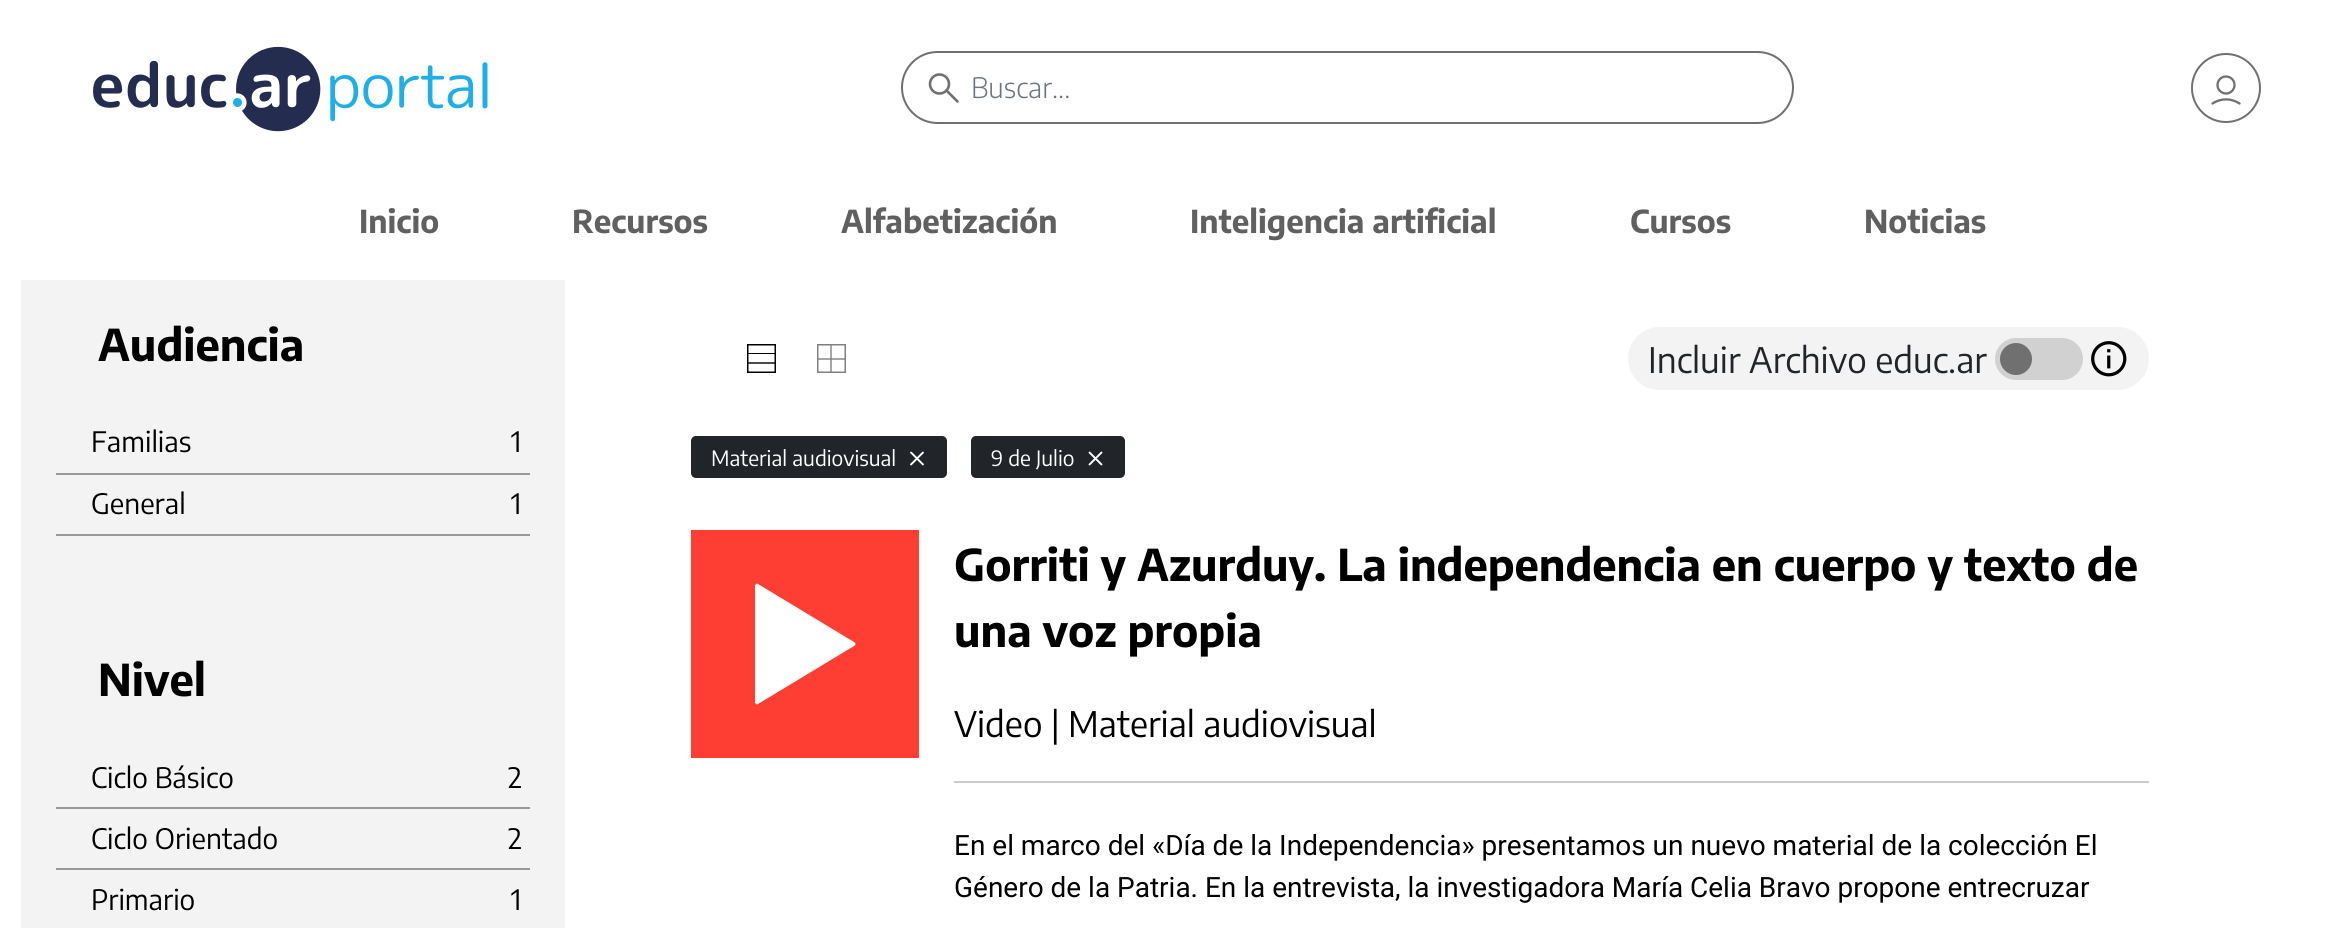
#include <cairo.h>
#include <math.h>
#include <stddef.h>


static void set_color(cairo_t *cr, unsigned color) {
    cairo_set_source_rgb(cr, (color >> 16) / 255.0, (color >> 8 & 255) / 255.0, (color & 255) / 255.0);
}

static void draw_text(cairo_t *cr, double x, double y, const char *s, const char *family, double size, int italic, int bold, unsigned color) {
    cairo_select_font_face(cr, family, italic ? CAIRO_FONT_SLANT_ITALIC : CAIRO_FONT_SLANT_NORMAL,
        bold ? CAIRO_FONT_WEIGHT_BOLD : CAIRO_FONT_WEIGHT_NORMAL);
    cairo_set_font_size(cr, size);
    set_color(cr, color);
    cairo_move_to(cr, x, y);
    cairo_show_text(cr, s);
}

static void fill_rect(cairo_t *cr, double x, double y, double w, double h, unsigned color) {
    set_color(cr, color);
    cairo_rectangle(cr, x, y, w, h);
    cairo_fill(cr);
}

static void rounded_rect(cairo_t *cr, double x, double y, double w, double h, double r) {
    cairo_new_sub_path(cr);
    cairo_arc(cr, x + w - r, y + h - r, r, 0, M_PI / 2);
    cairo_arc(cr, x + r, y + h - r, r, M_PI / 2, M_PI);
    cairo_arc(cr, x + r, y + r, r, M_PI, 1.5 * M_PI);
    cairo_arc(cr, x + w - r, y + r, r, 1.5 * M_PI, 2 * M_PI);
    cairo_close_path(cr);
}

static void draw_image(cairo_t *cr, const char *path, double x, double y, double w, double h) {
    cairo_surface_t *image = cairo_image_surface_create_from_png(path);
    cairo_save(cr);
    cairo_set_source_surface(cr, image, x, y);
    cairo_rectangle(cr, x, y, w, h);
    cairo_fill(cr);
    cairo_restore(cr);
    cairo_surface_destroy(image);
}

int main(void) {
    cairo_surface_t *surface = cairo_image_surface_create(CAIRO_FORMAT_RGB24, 2344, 928);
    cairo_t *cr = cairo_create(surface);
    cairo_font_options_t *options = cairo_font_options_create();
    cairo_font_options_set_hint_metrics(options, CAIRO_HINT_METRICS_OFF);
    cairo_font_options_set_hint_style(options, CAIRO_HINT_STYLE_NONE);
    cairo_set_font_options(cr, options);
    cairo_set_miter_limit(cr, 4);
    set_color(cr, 0xFFFFFF);
    cairo_paint(cr);
    draw_image(cr, "assets/img1.png", 93, 46, 395, 86);
    rounded_rect(cr, 902, 52, 891, 71, 35.5);
    set_color(cr, 0x707070);
    cairo_stroke(cr);
    cairo_arc(cr, 939.5, 84, 9.5, 0, 2 * M_PI);
    cairo_set_line_width(cr, 2.6);
    cairo_stroke(cr);
    cairo_new_path(cr);
    cairo_move_to(cr, 957.5, 101.5);
    cairo_line_to(cr, 946.5, 90.5);
    cairo_set_line_cap(cr, CAIRO_LINE_CAP_ROUND);
    cairo_set_line_join(cr, CAIRO_LINE_JOIN_ROUND);
    cairo_stroke(cr);
    draw_text(cr, 971, 98, "Buscar...", "Encode Sans Condensed Light", 28, 0, 0, 0x6C757D);
    cairo_new_path(cr);
    cairo_arc(cr, 2226, 88, 34, 0, 2 * M_PI);
    set_color(cr, 0x707070);
    cairo_set_line_width(cr, 2);
    cairo_set_line_cap(cr, CAIRO_LINE_CAP_BUTT);
    cairo_set_line_join(cr, CAIRO_LINE_JOIN_MITER);
    cairo_stroke(cr);
    cairo_arc(cr, 2226, 85, 8.5, 0, 2 * M_PI);
    cairo_set_line_width(cr, 2.3);
    cairo_stroke(cr);
    cairo_new_path(cr);
    cairo_move_to(cr, 2212.5, 103.5);
    cairo_curve_to(cr, 2221, 98, 2231, 98, 2239.5, 103.5);
    cairo_set_line_cap(cr, CAIRO_LINE_CAP_ROUND);
    cairo_set_line_join(cr, CAIRO_LINE_JOIN_ROUND);
    cairo_stroke(cr);
    draw_text(cr, 359, 233, "Inicio", "Encode Sans Condensed", 31.5, 0, 1, 0x606060);
    draw_text(cr, 572, 233, "Recursos", "Encode Sans Condensed", 31.5, 0, 1, 0x606060);
    draw_text(cr, 841, 233, "Alfabetización", "Encode Sans Condensed", 31.5, 0, 1, 0x606060);
    draw_text(cr, 1190, 233, "Inteligencia artificial", "Encode Sans Condensed", 31.5, 0, 1, 0x606060);
    draw_text(cr, 1630, 233, "Cursos", "Encode Sans Condensed", 31.5, 0, 1, 0x606060);
    draw_text(cr, 1864, 233, "Noticias", "Encode Sans Condensed", 31.5, 0, 1, 0x606060);
    fill_rect(cr, 21, 280, 544, 648, 0xF3F3F3);
    draw_text(cr, 98, 361, "Audiencia", "Encode Sans Condensed", 43.75, 0, 1, 0x000000);
    fill_rect(cr, 56, 473, 474, 2, 0x999999);
    draw_text(cr, 91, 452, "Familias", "Encode Sans Condensed", 28, 0, 0, 0x000000);
    draw_text(cr, 511, 452, "1", "Encode Sans Condensed", 28, 0, 0, 0x000000);
    fill_rect(cr, 56, 534, 474, 2, 0x999999);
    draw_text(cr, 91, 514, "General", "Encode Sans Condensed", 28, 0, 0, 0x000000);
    draw_text(cr, 511, 514, "1", "Encode Sans Condensed", 28, 0, 0, 0x000000);
    draw_text(cr, 98, 696, "Nivel", "Encode Sans Condensed", 43.75, 0, 1, 0x000000);
    fill_rect(cr, 56, 807, 474, 2, 0x999999);
    draw_text(cr, 91, 788, "Ciclo Básico", "Encode Sans Condensed", 28, 0, 0, 0x000000);
    draw_text(cr, 508, 788, "2", "Encode Sans Condensed", 28, 0, 0, 0x000000);
    fill_rect(cr, 56, 868, 474, 2, 0x999999);
    draw_text(cr, 91, 849, "Ciclo Orientado", "Encode Sans Condensed", 28, 0, 0, 0x000000);
    draw_text(cr, 508, 849, "2", "Encode Sans Condensed", 28, 0, 0, 0x000000);
    draw_text(cr, 91, 910, "Primario", "Encode Sans Condensed", 28, 0, 0, 0x000000);
    draw_text(cr, 511, 910, "1", "Encode Sans Condensed", 28, 0, 0, 0x000000);
    cairo_rectangle(cr, 747.75, 344.75, 27.5, 27.5);
    cairo_set_line_width(cr, 1.5);
    cairo_set_line_cap(cr, CAIRO_LINE_CAP_BUTT);
    cairo_set_line_join(cr, CAIRO_LINE_JOIN_MITER);
    cairo_stroke(cr);
    fill_rect(cr, 748, 353, 27, 1, 0x000000);
    cairo_new_path(cr);
    cairo_move_to(cr, 747.5, 363);
    cairo_line_to(cr, 775, 363);
    cairo_set_line_width(cr, 1.4);
    cairo_stroke(cr);
    cairo_rectangle(cr, 817.75, 344.75, 27.5, 27.5);
    set_color(cr, 0x808080);
    cairo_set_line_width(cr, 1.5);
    cairo_stroke(cr);
    cairo_new_path(cr);
    cairo_move_to(cr, 817.5, 359);
    cairo_line_to(cr, 845, 359);
    cairo_move_to(cr, 831, 372.5);
    cairo_line_to(cr, 831, 345);
    cairo_set_line_width(cr, 1.4);
    cairo_stroke(cr);
    set_color(cr, 0xF3F3F3);
    rounded_rect(cr, 1628, 327, 521, 63, 31.5);
    cairo_fill(cr);
    draw_text(cr, 1648, 373, "Incluir Archivo educ.ar", "Encode Sans Condensed", 35, 0, 0, 0x212529);
    set_color(cr, 0xD1D1D1);
    rounded_rect(cr, 1995, 338, 88, 42, 21);
    cairo_fill(cr);
    set_color(cr, 0x707070);
    cairo_arc(cr, 2016, 359, 16, 0, 2 * M_PI);
    cairo_fill(cr);
    draw_image(cr, "assets/img2.png", 2091, 341, 36, 36);
    set_color(cr, 0x212529);
    rounded_rect(cr, 691, 436, 256, 42, 5);
    cairo_fill(cr);
    draw_text(cr, 711, 466, "Material audiovisual", "Encode Sans Condensed", 21, 0, 0, 0xFFFFFF);
    draw_image(cr, "assets/img3.png", 910, 451, 14, 15);
    set_color(cr, 0x212529);
    rounded_rect(cr, 971, 436, 154, 42, 5);
    cairo_fill(cr);
    draw_text(cr, 991, 466, "9 de Julio", "Encode Sans Condensed", 21, 0, 0, 0xFFFFFF);
    draw_image(cr, "assets/img4.png", 1088, 451, 15, 15);
    fill_rect(cr, 691, 530, 228, 228, 0xFF3E33);
    set_color(cr, 0xFFFFFF);
    cairo_new_path(cr);
    cairo_move_to(cr, 755, 586);
    cairo_line_to(cr, 755, 702);
    cairo_curve_to(cr, 755, 704, 757, 705, 758, 704);
    cairo_line_to(cr, 854, 646);
    cairo_curve_to(cr, 856, 645, 856, 643, 854, 642);
    cairo_line_to(cr, 758, 584);
    cairo_curve_to(cr, 757, 583, 755, 584, 755, 586);
    cairo_close_path(cr);
    cairo_fill(cr);
    draw_text(cr, 954, 581, "Gorriti y Azurduy. La independencia en cuerpo y texto de", "Encode Sans Condensed", 43.7, 0, 1, 0x000000);
    draw_text(cr, 954, 647, "una voz propia", "Encode Sans Condensed", 43.7, 0, 1, 0x000000);
    fill_rect(cr, 954, 781, 1195, 2, 0xCCCCCC);
    draw_text(cr, 954, 737, "Video | Material audiovisual", "Encode Sans Condensed", 35, 0, 0, 0x000000);
    draw_text(cr, 954, 855, "En el marco del «Día de la Independencia» presentamos un nuevo material de la colección El", "Roboto", 28, 0, 0, 0x000000);
    draw_text(cr, 954, 897, "Género de la Patria. En la entrevista, la investigadora María Celia Bravo propone entrecruzar", "Roboto", 28, 0, 0, 0x000000);
    cairo_surface_write_to_png(surface, "output.png");
    cairo_font_options_destroy(options);
    cairo_destroy(cr);
    cairo_surface_destroy(surface);
    return 0;
}
